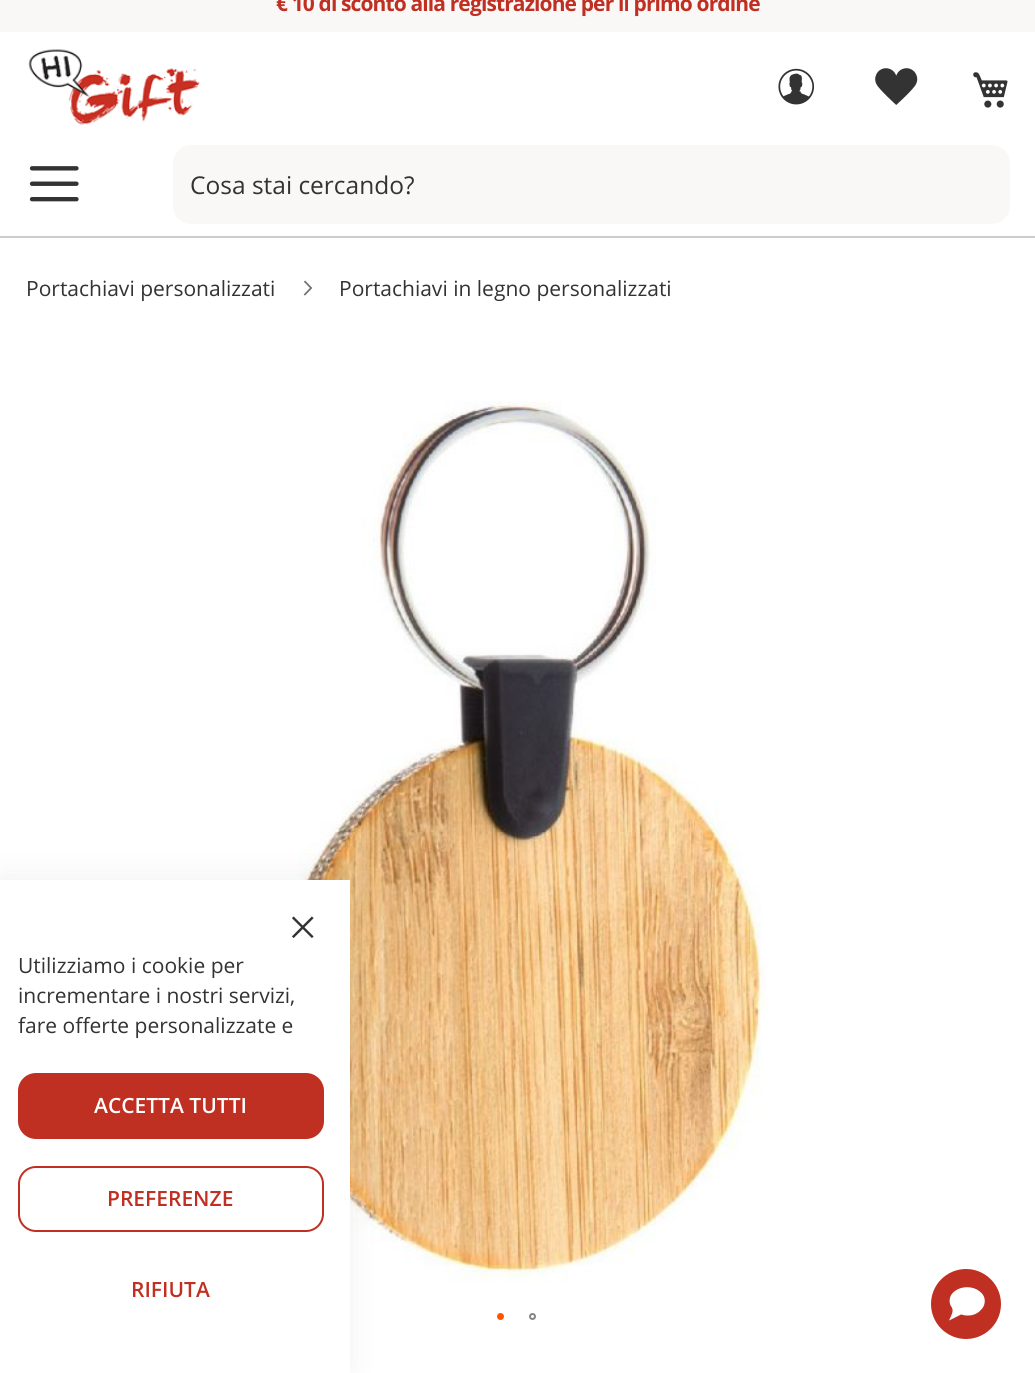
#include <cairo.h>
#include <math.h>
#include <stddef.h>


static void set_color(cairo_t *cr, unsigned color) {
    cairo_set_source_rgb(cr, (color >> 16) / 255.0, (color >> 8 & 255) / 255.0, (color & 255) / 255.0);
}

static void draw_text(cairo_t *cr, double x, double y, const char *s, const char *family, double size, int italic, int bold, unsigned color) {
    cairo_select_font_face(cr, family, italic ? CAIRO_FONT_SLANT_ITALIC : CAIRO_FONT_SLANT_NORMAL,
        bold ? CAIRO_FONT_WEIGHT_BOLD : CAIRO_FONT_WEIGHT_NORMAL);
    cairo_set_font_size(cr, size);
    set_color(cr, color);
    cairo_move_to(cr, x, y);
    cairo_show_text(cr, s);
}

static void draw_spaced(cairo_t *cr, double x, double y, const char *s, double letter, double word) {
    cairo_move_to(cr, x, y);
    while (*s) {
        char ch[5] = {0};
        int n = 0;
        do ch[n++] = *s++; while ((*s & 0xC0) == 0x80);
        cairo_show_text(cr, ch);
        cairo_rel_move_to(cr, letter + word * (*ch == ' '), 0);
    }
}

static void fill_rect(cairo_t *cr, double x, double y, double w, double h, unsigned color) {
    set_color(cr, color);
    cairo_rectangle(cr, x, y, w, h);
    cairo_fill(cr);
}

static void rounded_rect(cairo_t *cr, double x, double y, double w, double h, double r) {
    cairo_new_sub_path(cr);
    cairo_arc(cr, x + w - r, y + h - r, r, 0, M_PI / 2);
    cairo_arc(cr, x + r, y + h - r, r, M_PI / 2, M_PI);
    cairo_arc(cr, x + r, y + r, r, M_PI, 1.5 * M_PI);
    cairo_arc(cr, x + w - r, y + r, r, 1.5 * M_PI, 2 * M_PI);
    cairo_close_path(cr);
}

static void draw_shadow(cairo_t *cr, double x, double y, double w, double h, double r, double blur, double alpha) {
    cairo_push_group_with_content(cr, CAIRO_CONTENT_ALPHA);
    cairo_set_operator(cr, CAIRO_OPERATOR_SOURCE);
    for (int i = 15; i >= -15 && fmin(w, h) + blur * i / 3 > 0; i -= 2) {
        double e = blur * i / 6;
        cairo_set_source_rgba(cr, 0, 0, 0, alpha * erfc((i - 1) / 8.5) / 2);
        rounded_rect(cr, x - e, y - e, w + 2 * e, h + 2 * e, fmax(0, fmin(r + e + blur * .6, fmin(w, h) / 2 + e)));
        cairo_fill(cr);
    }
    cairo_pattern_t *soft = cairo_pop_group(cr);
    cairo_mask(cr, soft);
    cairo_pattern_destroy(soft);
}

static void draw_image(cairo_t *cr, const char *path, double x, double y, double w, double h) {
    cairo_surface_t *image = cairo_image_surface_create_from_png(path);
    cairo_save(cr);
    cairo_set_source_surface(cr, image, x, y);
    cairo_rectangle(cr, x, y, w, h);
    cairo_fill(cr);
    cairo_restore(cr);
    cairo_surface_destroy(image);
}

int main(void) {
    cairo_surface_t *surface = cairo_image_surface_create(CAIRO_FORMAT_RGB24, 1035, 1373);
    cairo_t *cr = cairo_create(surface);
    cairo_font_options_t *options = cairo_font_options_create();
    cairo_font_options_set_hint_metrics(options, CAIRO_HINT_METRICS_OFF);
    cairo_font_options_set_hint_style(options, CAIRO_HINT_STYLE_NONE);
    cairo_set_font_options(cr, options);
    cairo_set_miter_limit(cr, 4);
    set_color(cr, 0xFFFFFF);
    cairo_paint(cr);
    fill_rect(cr, 0, 236, 1035, 2, 0xCCCCCC);
    fill_rect(cr, 0, 0, 1035, 32, 0xFAF7F7);
    cairo_select_font_face(cr, "Open Sans", CAIRO_FONT_SLANT_NORMAL, CAIRO_FONT_WEIGHT_BOLD);
    cairo_set_font_size(cr, 21);
    set_color(cr, 0xC03022);
    draw_spaced(cr, 276, 11, "€ 10 di sconto alla registrazione per il primo ordine", -0.88, 0);
    draw_image(cr, "assets/img1.png", 28, 49, 172, 76);
    draw_image(cr, "assets/img2.png", 29, 166, 50, 36);
    draw_image(cr, "assets/img3.png", 778, 68, 37, 37);
    draw_image(cr, "assets/img4.png", 875, 68, 43, 37);
    draw_image(cr, "assets/img5.png", 973, 72, 35, 36);
    set_color(cr, 0xFAF7F7);
    rounded_rect(cr, 173, 145, 837, 79, 18);
    cairo_fill(cr);
    draw_text(cr, 190, 194, "Cosa stai cercando?", "Open Sans", 24.5, 0, 0, 0x333333);
    draw_text(cr, 26, 296, "Portachiavi personalizzati", "Open Sans", 21, 0, 0, 0x333333);
    draw_image(cr, "assets/img6.png", 303, 280, 10, 16);
    draw_text(cr, 339, 296, "Portachiavi in legno personalizzati", "Open Sans", 21, 0, 0, 0x333333);
    draw_image(cr, "assets/img7.png", 272, 401, 496, 882);
    set_color(cr, 0xFF5501);
    cairo_arc(cr, 500.5, 1316.5, 2.5, 0, 2 * M_PI);
    cairo_fill_preserve(cr);
    cairo_stroke(cr);
    cairo_arc(cr, 532.5, 1316.5, 2.5, 0, 2 * M_PI);
    set_color(cr, 0x858585);
    cairo_stroke(cr);
    set_color(cr, 0xC03022);
    cairo_arc(cr, 966, 1304, 35, 0, 2 * M_PI);
    cairo_fill(cr);
    draw_image(cr, "assets/img8.png", 949, 1287, 36, 34);
    set_color(cr, 0x000000);
    draw_shadow(cr, 0, 877, 350, 493, 0, 16, 0.06);
    fill_rect(cr, 0, 880, 350, 493, 0xFFFFFF);
    draw_image(cr, "assets/img9.png", 292, 916, 22, 22);
    draw_text(cr, 18, 973, "Utilizziamo i cookie per", "Open Sans", 21, 0, 0, 0x333333);
    draw_text(cr, 18, 1003, "incrementare i nostri servizi,", "Open Sans", 21, 0, 0, 0x333333);
    draw_text(cr, 18, 1033, "fare offerte personalizzate e", "Open Sans", 21, 0, 0, 0x333333);
    set_color(cr, 0xC03022);
    rounded_rect(cr, 19, 1074, 304, 64, 17);
    cairo_fill_preserve(cr);
    cairo_stroke(cr);
    draw_text(cr, 94, 1113, "ACCETTA TUTTI", "Open Sans SemiBold", 21, 0, 0, 0xFFFFFF);
    rounded_rect(cr, 19, 1167, 304, 64, 17);
    set_color(cr, 0xC03022);
    cairo_stroke(cr);
    draw_text(cr, 107, 1206, "PREFERENZE", "Open Sans SemiBold", 21, 0, 0, 0xC03022);
    draw_text(cr, 131, 1297, "RIFIUTA", "Open Sans SemiBold", 21, 0, 0, 0xC03022);
    cairo_surface_write_to_png(surface, "output.png");
    cairo_font_options_destroy(options);
    cairo_destroy(cr);
    cairo_surface_destroy(surface);
    return 0;
}
